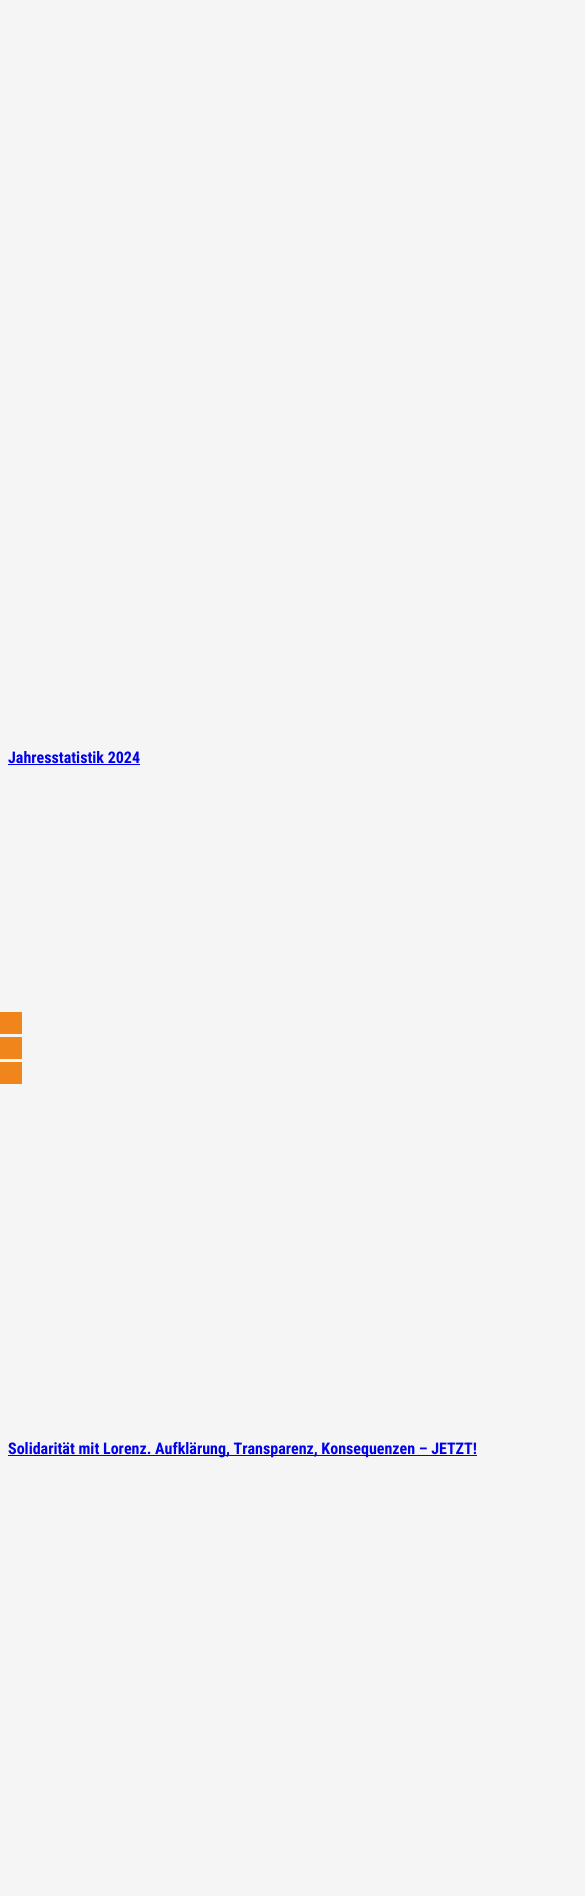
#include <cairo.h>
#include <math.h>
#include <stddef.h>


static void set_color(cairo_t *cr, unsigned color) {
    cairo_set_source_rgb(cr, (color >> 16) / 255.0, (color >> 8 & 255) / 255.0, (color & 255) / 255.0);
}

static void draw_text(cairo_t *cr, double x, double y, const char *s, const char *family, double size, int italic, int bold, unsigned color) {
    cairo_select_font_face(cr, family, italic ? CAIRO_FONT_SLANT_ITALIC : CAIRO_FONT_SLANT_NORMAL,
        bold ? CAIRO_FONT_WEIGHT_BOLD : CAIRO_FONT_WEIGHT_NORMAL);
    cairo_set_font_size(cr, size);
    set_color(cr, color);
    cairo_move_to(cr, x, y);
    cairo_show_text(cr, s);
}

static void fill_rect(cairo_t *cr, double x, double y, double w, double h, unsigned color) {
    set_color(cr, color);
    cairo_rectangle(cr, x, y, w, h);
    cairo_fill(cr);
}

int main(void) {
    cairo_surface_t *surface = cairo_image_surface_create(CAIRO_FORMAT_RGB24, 585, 1896);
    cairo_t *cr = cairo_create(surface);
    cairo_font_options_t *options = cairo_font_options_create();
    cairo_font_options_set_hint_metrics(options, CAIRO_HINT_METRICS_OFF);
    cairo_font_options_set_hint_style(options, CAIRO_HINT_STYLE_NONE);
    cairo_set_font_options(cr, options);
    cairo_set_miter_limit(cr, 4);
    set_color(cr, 0xF5F5F5);
    cairo_paint(cr);
    draw_text(cr, 8, 763, "Jahresstatistik 2024", "Roboto Condensed", 16, 0, 1, 0x0000EE);
    fill_rect(cr, 8, 764, 132, 1, 0x0000EE);
    fill_rect(cr, 8, 1455, 469, 1, 0x0000EE);
    draw_text(cr, 8, 1454, "Solidarität mit Lorenz. Aufklärung, Transparenz, Konsequenzen – JETZT!", "Roboto Condensed", 16, 0, 1, 0x0000EE);
    fill_rect(cr, 0, 1012, 22, 22, 0xF0861B);
    fill_rect(cr, 0, 1037, 22, 22, 0xF0861B);
    fill_rect(cr, 0, 1062, 22, 22, 0xF0861B);
    cairo_surface_write_to_png(surface, "output.png");
    cairo_font_options_destroy(options);
    cairo_destroy(cr);
    cairo_surface_destroy(surface);
    return 0;
}
